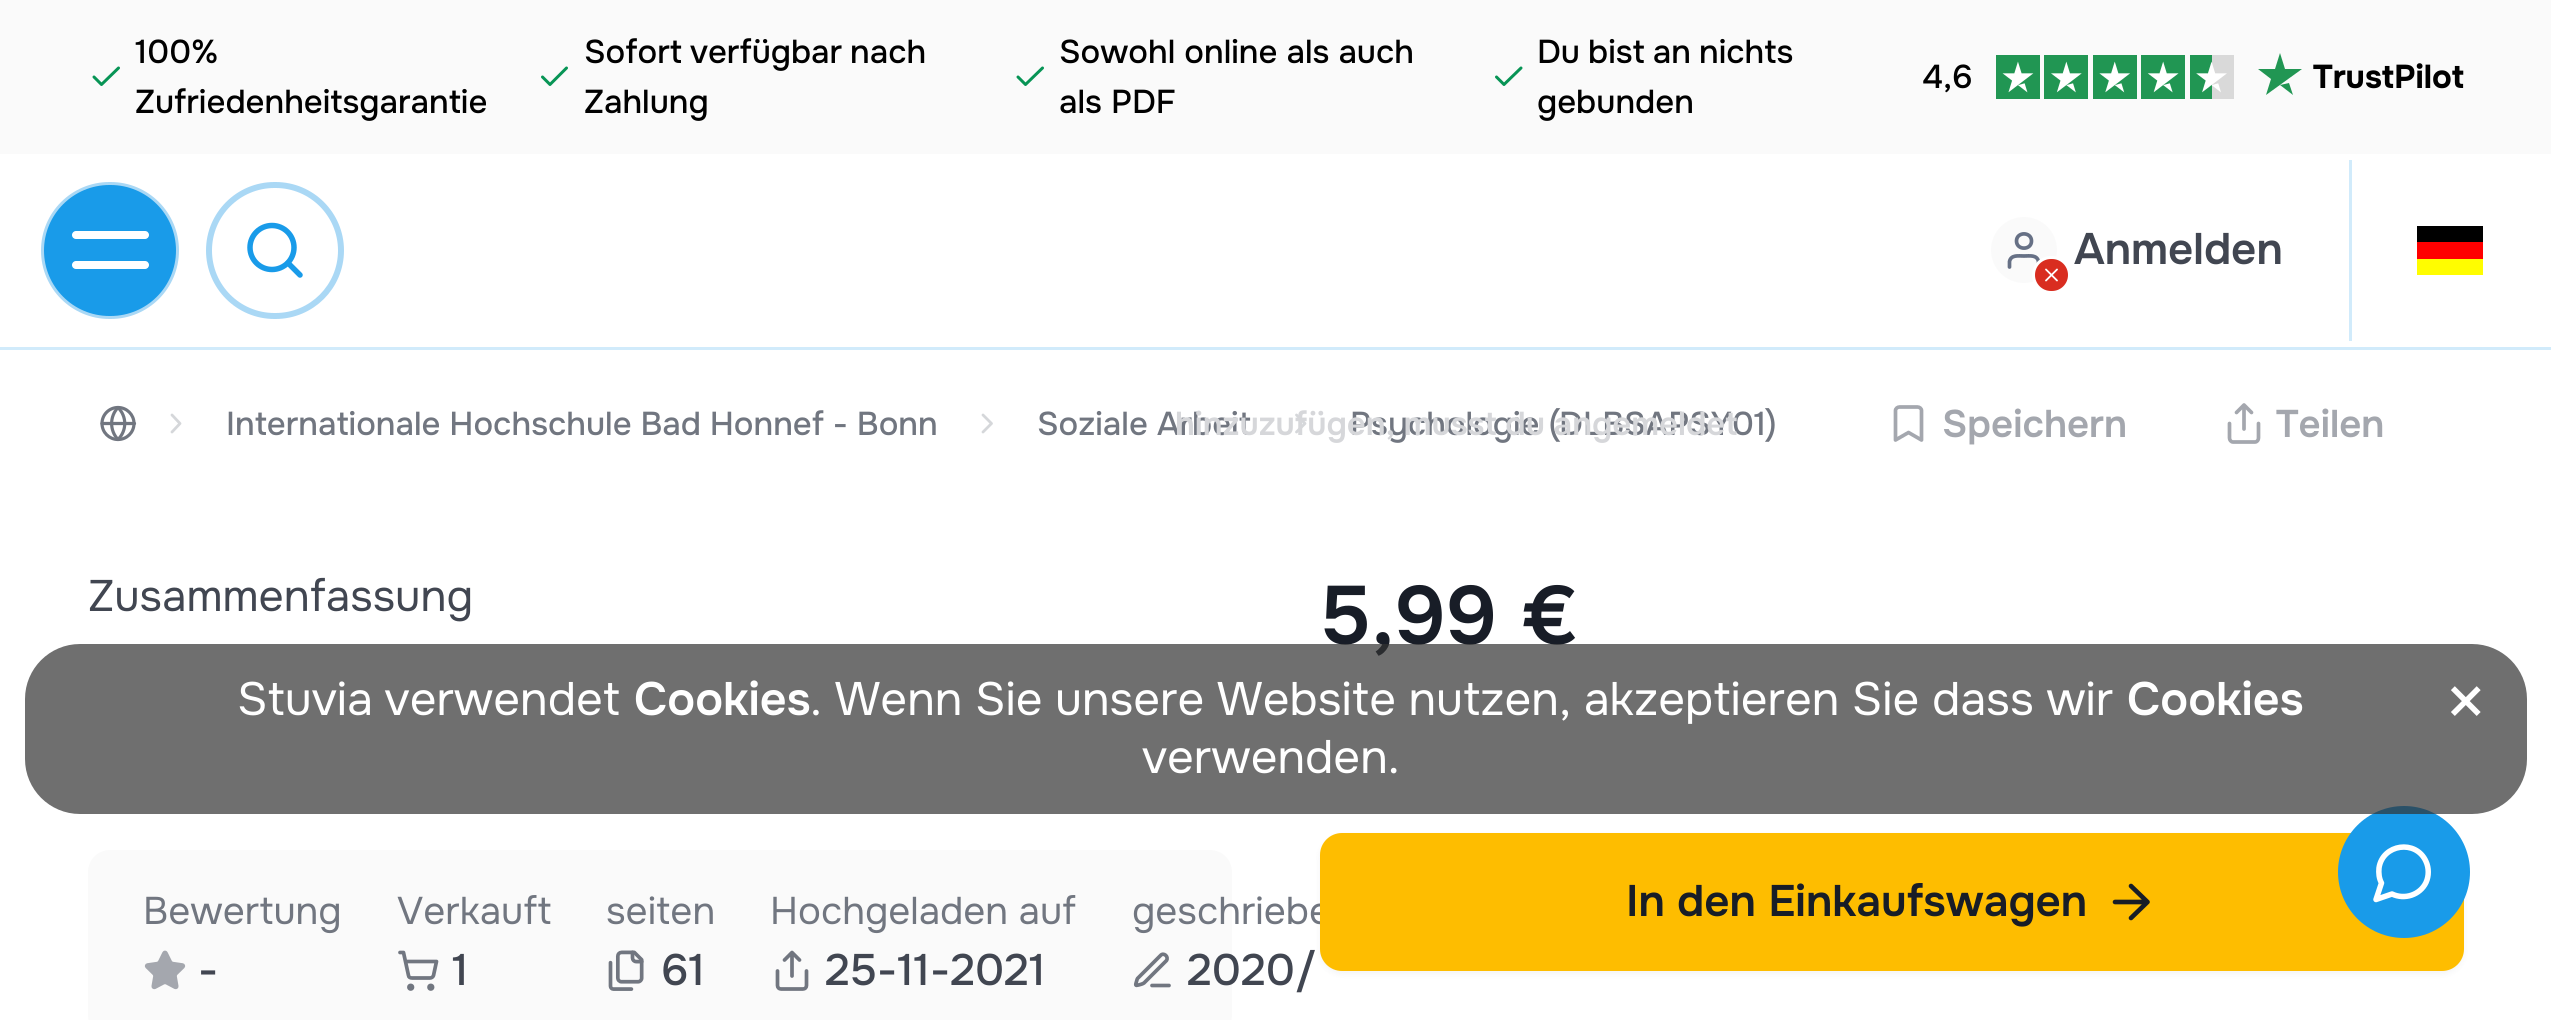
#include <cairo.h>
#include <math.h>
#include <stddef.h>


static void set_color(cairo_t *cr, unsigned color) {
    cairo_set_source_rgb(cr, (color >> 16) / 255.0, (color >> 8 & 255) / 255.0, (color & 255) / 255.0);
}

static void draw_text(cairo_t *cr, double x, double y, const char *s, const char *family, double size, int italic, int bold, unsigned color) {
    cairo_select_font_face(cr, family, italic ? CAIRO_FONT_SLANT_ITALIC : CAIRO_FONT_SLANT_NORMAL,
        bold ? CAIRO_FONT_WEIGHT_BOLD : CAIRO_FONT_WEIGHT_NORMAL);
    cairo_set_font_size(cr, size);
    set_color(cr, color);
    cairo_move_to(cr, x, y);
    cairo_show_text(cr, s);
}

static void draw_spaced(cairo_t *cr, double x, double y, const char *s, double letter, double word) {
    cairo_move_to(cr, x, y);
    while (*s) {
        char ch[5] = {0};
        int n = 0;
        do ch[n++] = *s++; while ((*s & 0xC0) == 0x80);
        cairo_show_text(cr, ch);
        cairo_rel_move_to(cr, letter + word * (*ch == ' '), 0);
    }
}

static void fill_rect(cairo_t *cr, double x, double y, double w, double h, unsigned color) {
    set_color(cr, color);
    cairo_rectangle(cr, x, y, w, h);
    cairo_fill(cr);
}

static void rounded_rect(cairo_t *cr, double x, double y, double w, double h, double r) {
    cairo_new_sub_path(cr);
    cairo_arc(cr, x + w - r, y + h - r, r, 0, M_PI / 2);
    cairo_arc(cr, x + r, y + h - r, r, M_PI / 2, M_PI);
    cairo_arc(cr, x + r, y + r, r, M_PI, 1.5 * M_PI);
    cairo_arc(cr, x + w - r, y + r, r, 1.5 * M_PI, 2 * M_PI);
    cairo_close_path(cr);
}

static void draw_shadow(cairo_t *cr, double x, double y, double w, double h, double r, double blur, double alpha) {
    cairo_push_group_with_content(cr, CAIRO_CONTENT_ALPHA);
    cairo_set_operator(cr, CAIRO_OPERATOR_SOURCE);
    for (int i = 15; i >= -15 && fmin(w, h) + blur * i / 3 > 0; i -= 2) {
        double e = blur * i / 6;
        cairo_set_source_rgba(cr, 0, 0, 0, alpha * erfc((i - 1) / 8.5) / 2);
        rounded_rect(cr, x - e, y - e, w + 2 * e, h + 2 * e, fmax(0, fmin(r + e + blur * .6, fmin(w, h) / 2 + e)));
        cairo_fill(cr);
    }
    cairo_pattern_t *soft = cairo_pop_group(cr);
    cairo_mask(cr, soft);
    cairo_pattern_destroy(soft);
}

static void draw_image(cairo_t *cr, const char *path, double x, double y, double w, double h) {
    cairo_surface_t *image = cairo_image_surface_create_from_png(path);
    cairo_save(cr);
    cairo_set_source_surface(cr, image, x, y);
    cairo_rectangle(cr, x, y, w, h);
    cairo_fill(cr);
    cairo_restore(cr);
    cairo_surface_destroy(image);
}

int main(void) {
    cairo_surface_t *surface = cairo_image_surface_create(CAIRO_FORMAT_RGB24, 2551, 1020);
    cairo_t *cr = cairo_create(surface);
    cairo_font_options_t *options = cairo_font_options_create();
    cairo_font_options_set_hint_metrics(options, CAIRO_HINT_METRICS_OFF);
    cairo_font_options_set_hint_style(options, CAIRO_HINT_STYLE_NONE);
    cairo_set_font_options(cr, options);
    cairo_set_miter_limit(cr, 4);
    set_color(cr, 0xFFFFFF);
    cairo_paint(cr);
    fill_rect(cr, 0, 0, 2551, 154, 0xFAFAFA);
    draw_text(cr, 135, 63, "100%", "Onest Medium", 33, 0, 0, 0x000000);
    cairo_new_path(cr);
    cairo_move_to(cr, 118.5, 68);
    cairo_line_to(cr, 101.5, 84.5);
    cairo_line_to(cr, 94, 77);
    set_color(cr, 0x079455);
    cairo_set_line_width(cr, 3);
    cairo_set_line_cap(cr, CAIRO_LINE_CAP_ROUND);
    cairo_set_line_join(cr, CAIRO_LINE_JOIN_ROUND);
    cairo_stroke(cr);
    draw_text(cr, 135, 113, "Zufriedenheitsgarantie", "Onest Medium", 33, 0, 0, 0x000000);
    draw_spaced(cr, 584, 63, "Sofort verfügbar nach", 0, -1);
    cairo_new_path(cr);
    cairo_move_to(cr, 566.5, 68);
    cairo_line_to(cr, 550, 84.5);
    cairo_line_to(cr, 542.5, 77);
    set_color(cr, 0x079455);
    cairo_stroke(cr);
    draw_text(cr, 584, 113, "Zahlung", "Onest Medium", 33, 0, 0, 0x000000);
    draw_text(cr, 1059, 63, "Sowohl online als auch", "Onest Medium", 33, 0, 0, 0x000000);
    cairo_new_path(cr);
    cairo_move_to(cr, 1042.5, 68);
    cairo_line_to(cr, 1025.5, 84.5);
    cairo_line_to(cr, 1018, 77);
    set_color(cr, 0x079455);
    cairo_stroke(cr);
    draw_text(cr, 1059, 113, "als PDF", "Onest Medium", 33, 0, 0, 0x000000);
    draw_spaced(cr, 1537, 63, "Du bist an nichts", 0, -1);
    cairo_new_path(cr);
    cairo_move_to(cr, 1521, 68);
    cairo_line_to(cr, 1504, 84.5);
    cairo_line_to(cr, 1496.5, 77);
    set_color(cr, 0x079455);
    cairo_stroke(cr);
    draw_text(cr, 1537, 113, "gebunden", "Onest Medium", 33, 0, 0, 0x000000);
    draw_text(cr, 1922, 88, "4,6", "Onest Medium", 33, 0, 0, 0x000000);
    draw_image(cr, "assets/img1.png", 1996, 55, 238, 44);
    set_color(cr, 0x219653);
    cairo_new_path(cr);
    cairo_move_to(cr, 2280, 85);
    cairo_line_to(cr, 2289, 83);
    cairo_line_to(cr, 2293, 95);
    cairo_close_path(cr);
    cairo_move_to(cr, 2302, 69);
    cairo_line_to(cr, 2285, 69);
    cairo_line_to(cr, 2280, 53);
    cairo_line_to(cr, 2275, 69);
    cairo_line_to(cr, 2258, 69);
    cairo_line_to(cr, 2271, 79);
    cairo_line_to(cr, 2266, 95);
    cairo_close_path(cr);
    cairo_fill(cr);
    draw_text(cr, 2313, 88, "TrustPilot", "Onest", 33, 0, 1, 0x000000);
    fill_rect(cr, 0, 347, 2551, 3, 0xD1EBFB);
    set_color(cr, 0x199BE9);
    rounded_rect(cr, 42.5, 183.5, 135, 134, 67);
    cairo_fill_preserve(cr);
    set_color(cr, 0xAAD8F5);
    cairo_set_line_cap(cr, CAIRO_LINE_CAP_BUTT);
    cairo_set_line_join(cr, CAIRO_LINE_JOIN_MITER);
    cairo_stroke(cr);
    set_color(cr, 0xFFFFFF);
    rounded_rect(cr, 72, 231, 77, 8, 4);
    cairo_fill(cr);
    rounded_rect(cr, 72, 261, 77, 8, 4);
    cairo_fill(cr);
    rounded_rect(cr, 209, 185, 132, 131, 65.5);
    set_color(cr, 0xAAD8F5);
    cairo_set_line_width(cr, 6);
    cairo_stroke(cr);
    cairo_arc(cr, 272, 247.5, 22, 0, 2 * M_PI);
    set_color(cr, 0x199BE9);
    cairo_set_line_width(cr, 5.5);
    cairo_stroke(cr);
    cairo_new_path(cr);
    cairo_move_to(cr, 300, 275);
    cairo_line_to(cr, 288, 263);
    cairo_set_line_cap(cr, CAIRO_LINE_CAP_ROUND);
    cairo_set_line_join(cr, CAIRO_LINE_JOIN_ROUND);
    cairo_stroke(cr);
    set_color(cr, 0xFAFAFA);
    cairo_arc(cr, 2024, 250, 33, 0, 2 * M_PI);
    cairo_fill(cr);
    cairo_new_path(cr);
    cairo_move_to(cr, 2038.5, 267);
    cairo_line_to(cr, 2038.5, 261.5);
    cairo_curve_to(cr, 2037, 254.5, 2029.5, 256, 2024, 256);
    cairo_curve_to(cr, 2018.5, 256, 2011, 254.5, 2009.5, 261.5);
    cairo_line_to(cr, 2009.5, 267);
    cairo_move_to(cr, 2031.5, 241);
    cairo_curve_to(cr, 2031.5, 250.5, 2016.5, 250.5, 2016.5, 241);
    cairo_curve_to(cr, 2016.5, 231.5, 2031.5, 231.5, 2031.5, 241);
    cairo_close_path(cr);
    set_color(cr, 0x667085);
    cairo_set_line_width(cr, 3.7);
    cairo_stroke(cr);
    set_color(cr, 0xD92D20);
    rounded_rect(cr, 2033.5, 257.5, 36, 35, 17.5);
    cairo_fill_preserve(cr);
    set_color(cr, 0xFFFFFF);
    cairo_set_line_width(cr, 3);
    cairo_set_line_cap(cr, CAIRO_LINE_CAP_BUTT);
    cairo_set_line_join(cr, CAIRO_LINE_JOIN_MITER);
    cairo_stroke(cr);
    cairo_new_path(cr);
    cairo_move_to(cr, 2057, 269.5);
    cairo_line_to(cr, 2046, 280.5);
    cairo_move_to(cr, 2046, 269.5);
    cairo_line_to(cr, 2057, 280.5);
    cairo_set_line_width(cr, 1.8);
    cairo_set_line_cap(cr, CAIRO_LINE_CAP_ROUND);
    cairo_set_line_join(cr, CAIRO_LINE_JOIN_ROUND);
    cairo_stroke(cr);
    draw_text(cr, 2074, 264, "Anmelden", "Onest SemiBold", 44, 0, 0, 0x414651);
    fill_rect(cr, 2349, 160, 3, 181, 0xD1EBFB);
    fill_rect(cr, 2417, 259, 66, 16, 0xFFFD00);
    fill_rect(cr, 2417, 226, 66, 16, 0x000000);
    fill_rect(cr, 2417, 242, 66, 17, 0xFF0000);
    cairo_new_path(cr);
    cairo_arc(cr, 118, 423.5, 16, 0, 2 * M_PI);
    set_color(cr, 0x717680);
    cairo_set_line_width(cr, 3.2);
    cairo_set_line_cap(cr, CAIRO_LINE_CAP_BUTT);
    cairo_set_line_join(cr, CAIRO_LINE_JOIN_MITER);
    cairo_stroke(cr);
    cairo_new_path(cr);
    cairo_move_to(cr, 118, 407.5);
    cairo_curve_to(cr, 109.5, 416.5, 109.5, 430.5, 118, 439.5);
    cairo_curve_to(cr, 127, 430.5, 127, 416.5, 118, 407.5);
    cairo_move_to(cr, 102, 423.5);
    cairo_line_to(cr, 134.5, 423.5);
    cairo_set_line_cap(cr, CAIRO_LINE_CAP_ROUND);
    cairo_set_line_join(cr, CAIRO_LINE_JOIN_ROUND);
    cairo_stroke(cr);
    cairo_new_path(cr);
    cairo_move_to(cr, 172, 432);
    cairo_line_to(cr, 180, 423.5);
    cairo_line_to(cr, 172, 415);
    set_color(cr, 0xD5D7DA);
    cairo_set_line_width(cr, 2.8);
    cairo_stroke(cr);
    cairo_select_font_face(cr, "Onest Medium", CAIRO_FONT_SLANT_NORMAL, CAIRO_FONT_WEIGHT_NORMAL);
    cairo_set_font_size(cr, 33);
    set_color(cr, 0x717680);
    draw_spaced(cr, 226, 435, "Internationale Hochschule Bad Honnef - Bonn", 0, -0.25);
    cairo_new_path(cr);
    cairo_move_to(cr, 983, 432);
    cairo_line_to(cr, 991.5, 423.5);
    cairo_line_to(cr, 983, 415);
    set_color(cr, 0xD5D7DA);
    cairo_stroke(cr);
    draw_text(cr, 1037, 435, "Soziale Arbeit", "Onest Medium", 33, 0, 0, 0x717680);
    cairo_new_path(cr);
    cairo_move_to(cr, 1296.5, 432);
    cairo_line_to(cr, 1305, 423.5);
    cairo_line_to(cr, 1296.5, 415);
    set_color(cr, 0xD5D7DA);
    cairo_stroke(cr);
    draw_text(cr, 1350, 435, "Psychologie (DLBSAPSY01)", "Onest Medium", 33, 0, 0, 0x717680);
    cairo_select_font_face(cr, "Onest SemiBold", CAIRO_FONT_SLANT_NORMAL, CAIRO_FONT_WEIGHT_NORMAL);
    set_color(cr, 0xD6D7DA);
    draw_spaced(cr, 1175, 435, "hinzuzufügen, musst du angemeldet", 0, -0.5);
    cairo_new_path(cr);
    cairo_move_to(cr, 1921.5, 440);
    cairo_line_to(cr, 1908.5, 432.5);
    cairo_line_to(cr, 1895.5, 440);
    cairo_line_to(cr, 1895.5, 410.5);
    cairo_curve_to(cr, 1895.5, 408.5, 1897.5, 407, 1899.5, 407);
    cairo_line_to(cr, 1917.5, 407);
    cairo_curve_to(cr, 1919.5, 407, 1921.5, 408.5, 1921.5, 410.5);
    cairo_close_path(cr);
    set_color(cr, 0xA4A7AE);
    cairo_set_line_width(cr, 3.7);
    cairo_stroke(cr);
    draw_text(cr, 1942, 437, "Speichern", "Onest SemiBold", 38.5, 0, 0, 0xA4A7AE);
    cairo_new_path(cr);
    cairo_move_to(cr, 2229.5, 423.5);
    cairo_line_to(cr, 2229.5, 438);
    cairo_curve_to(cr, 2229.5, 440, 2231, 442, 2233, 442);
    cairo_line_to(cr, 2255, 442);
    cairo_curve_to(cr, 2257, 442, 2258.5, 440, 2258.5, 438);
    cairo_line_to(cr, 2258.5, 423.5);
    cairo_move_to(cr, 2251.5, 412.5);
    cairo_line_to(cr, 2244, 405);
    cairo_line_to(cr, 2236.5, 412.5);
    cairo_move_to(cr, 2244, 405);
    cairo_line_to(cr, 2244, 429);
    cairo_stroke(cr);
    draw_text(cr, 2276, 437, "Teilen", "Onest SemiBold", 38.5, 0, 0, 0xA4A7AE);
    draw_text(cr, 88, 611, "Zusammenfassung", "Onest", 44, 0, 0, 0x414651);
    set_color(cr, 0xFAFAFA);
    rounded_rect(cr, 88, 850, 1144, 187, 22);
    cairo_fill(cr);
    draw_text(cr, 143, 924, "Bewertung", "Onest", 38.5, 0, 0, 0x717680);
    draw_image(cr, "assets/img2.png", 144, 950, 42, 40);
    draw_text(cr, 198, 985, "-", "Onest Medium", 44, 0, 0, 0x414651);
    draw_text(cr, 397, 924, "Verkauft", "Onest", 38.5, 0, 0, 0x717680);
    cairo_new_path(cr);
    cairo_arc(cr, 410.7, 987.2, 1.8, 0, 2 * M_PI);
    cairo_set_line_cap(cr, CAIRO_LINE_CAP_BUTT);
    cairo_set_line_join(cr, CAIRO_LINE_JOIN_MITER);
    cairo_stroke(cr);
    cairo_arc(cr, 430.8, 987.2, 1.8, 0, 2 * M_PI);
    cairo_stroke(cr);
    cairo_new_path(cr);
    cairo_move_to(cr, 400, 952.5);
    cairo_line_to(cr, 403.5, 952.5);
    cairo_line_to(cr, 408.5, 975.5);
    cairo_curve_to(cr, 408.5, 977, 410, 978, 412, 978);
    cairo_line_to(cr, 430, 978);
    cairo_curve_to(cr, 431.5, 978, 433, 977, 433.5, 975.5);
    cairo_line_to(cr, 436.5, 961.5);
    cairo_line_to(cr, 405.5, 961.5);
    cairo_set_line_cap(cr, CAIRO_LINE_CAP_ROUND);
    cairo_set_line_join(cr, CAIRO_LINE_JOIN_ROUND);
    cairo_stroke(cr);
    draw_text(cr, 452, 985, "1", "Onest Medium", 44, 0, 0, 0x414651);
    draw_text(cr, 606, 924, "seiten", "Onest", 38.5, 0, 0, 0x717680);
    draw_image(cr, "assets/img3.png", 608, 950, 36, 41);
    draw_text(cr, 661, 985, "61", "Onest Medium", 44, 0, 0, 0x414651);
    draw_text(cr, 770, 924, "Hochgeladen auf", "Onest", 38.5, 0, 0, 0x717680);
    cairo_new_path(cr);
    cairo_move_to(cr, 777.5, 971);
    cairo_line_to(cr, 777.5, 985.5);
    cairo_curve_to(cr, 777.5, 987.5, 779, 989, 781, 989);
    cairo_line_to(cr, 803, 989);
    cairo_curve_to(cr, 805, 989, 806.5, 987.5, 806.5, 985.5);
    cairo_line_to(cr, 806.5, 971);
    cairo_move_to(cr, 799.5, 960);
    cairo_line_to(cr, 792, 952.5);
    cairo_line_to(cr, 784.5, 960);
    cairo_move_to(cr, 792, 952.5);
    cairo_line_to(cr, 792, 976);
    cairo_stroke(cr);
    draw_text(cr, 825, 985, "25-11-2021", "Onest Medium", 44, 0, 0, 0x414651);
    draw_text(cr, 1132, 924, "geschriebe", "Onest", 38.5, 0, 0, 0x717680);
    cairo_new_path(cr);
    cairo_move_to(cr, 1152, 985.5);
    cairo_line_to(cr, 1169, 985.5);
    cairo_move_to(cr, 1160.5, 955.5);
    cairo_curve_to(cr, 1163.5, 952, 1169, 956.5, 1166.5, 960.5);
    cairo_line_to(cr, 1144, 983);
    cairo_curve_to(cr, 1142.5, 984, 1140.5, 984.5, 1138.5, 985);
    cairo_curve_to(cr, 1135, 986, 1135.5, 985, 1136.5, 981.5);
    cairo_curve_to(cr, 1137, 980, 1137, 978.5, 1138.5, 977.5);
    cairo_close_path(cr);
    cairo_stroke(cr);
    draw_text(cr, 1187, 985, "2020/", "Onest Medium", 44, 0, 0, 0x414651);
    fill_rect(cr, 1320, 903, 9, 22, 0xFFFFFF);
    draw_text(cr, 1320, 644, "5,99 €", "Onest SemiBold", 82.5, 0, 0, 0x181D27);
    set_color(cr, 0x101828);
    draw_shadow(cr, 1320, 836, 1144, 138, 22, 3, 0.05);
    set_color(cr, 0xFEBD00);
    rounded_rect(cr, 1321.5, 834.5, 1141, 135, 20.5);
    cairo_fill_preserve(cr);
    cairo_set_line_width(cr, 3);
    cairo_set_line_cap(cr, CAIRO_LINE_CAP_BUTT);
    cairo_set_line_join(cr, CAIRO_LINE_JOIN_MITER);
    cairo_stroke(cr);
    draw_text(cr, 1626, 916, "In den Einkaufswagen", "Onest SemiBold", 44, 0, 0, 0x181D27);
    cairo_new_path(cr);
    cairo_move_to(cr, 2115, 902);
    cairo_line_to(cr, 2147.5, 902);
    cairo_move_to(cr, 2131, 886);
    cairo_line_to(cr, 2147.5, 902);
    cairo_line_to(cr, 2131, 918);
    cairo_set_line_width(cr, 4.6);
    cairo_set_line_cap(cr, CAIRO_LINE_CAP_ROUND);
    cairo_set_line_join(cr, CAIRO_LINE_JOIN_ROUND);
    cairo_stroke(cr);
    set_color(cr, 0x199BE9);
    cairo_arc(cr, 2404, 872, 66, 0, 2 * M_PI);
    cairo_fill(cr);
    cairo_set_source_rgba(cr, 0.196, 0.196, 0.196, 0.7);
    rounded_rect(cr, 25, 644, 2502, 170, 55);
    cairo_fill(cr);
    cairo_select_font_face(cr, "Onest", CAIRO_FONT_SLANT_NORMAL, CAIRO_FONT_WEIGHT_NORMAL);
    cairo_set_font_size(cr, 46.75);
    set_color(cr, 0xFFFFFF);
    draw_spaced(cr, 237, 715, "Stuvia verwendet", 0, -1);
    draw_text(cr, 634, 715, "Cookies", "Onest SemiBold", 46.75, 0, 0, 0xFFFFFF);
    cairo_select_font_face(cr, "Onest", CAIRO_FONT_SLANT_NORMAL, CAIRO_FONT_WEIGHT_NORMAL);
    draw_spaced(cr, 810, 715, ". Wenn Sie unsere Website nutzen, akzeptieren Sie dass wir", 0, -0.1);
    draw_text(cr, 2127, 715, "Cookies", "Onest SemiBold", 46.75, 0, 0, 0xFFFFFF);
    draw_text(cr, 1142, 773, "verwenden.", "Onest", 46.75, 0, 0, 0xFFFFFF);
    draw_text(cr, 2444, 729, "×", "Onest", 79, 0, 0, 0xFFFFFF);
    cairo_new_path(cr);
    cairo_move_to(cr, 2392, 894);
    cairo_curve_to(cr, 2404.5, 900, 2420, 895, 2426, 882.5);
    cairo_curve_to(cr, 2429, 876, 2429, 868, 2426, 861.5);
    cairo_curve_to(cr, 2416, 839, 2382.5, 844, 2379, 868);
    cairo_curve_to(cr, 2378.5, 873, 2379, 878.5, 2381.5, 883);
    cairo_line_to(cr, 2376, 899.5);
    cairo_close_path(cr);
    cairo_set_line_width(cr, 5.5);
    cairo_stroke(cr);
    cairo_surface_write_to_png(surface, "output.png");
    cairo_font_options_destroy(options);
    cairo_destroy(cr);
    cairo_surface_destroy(surface);
    return 0;
}
